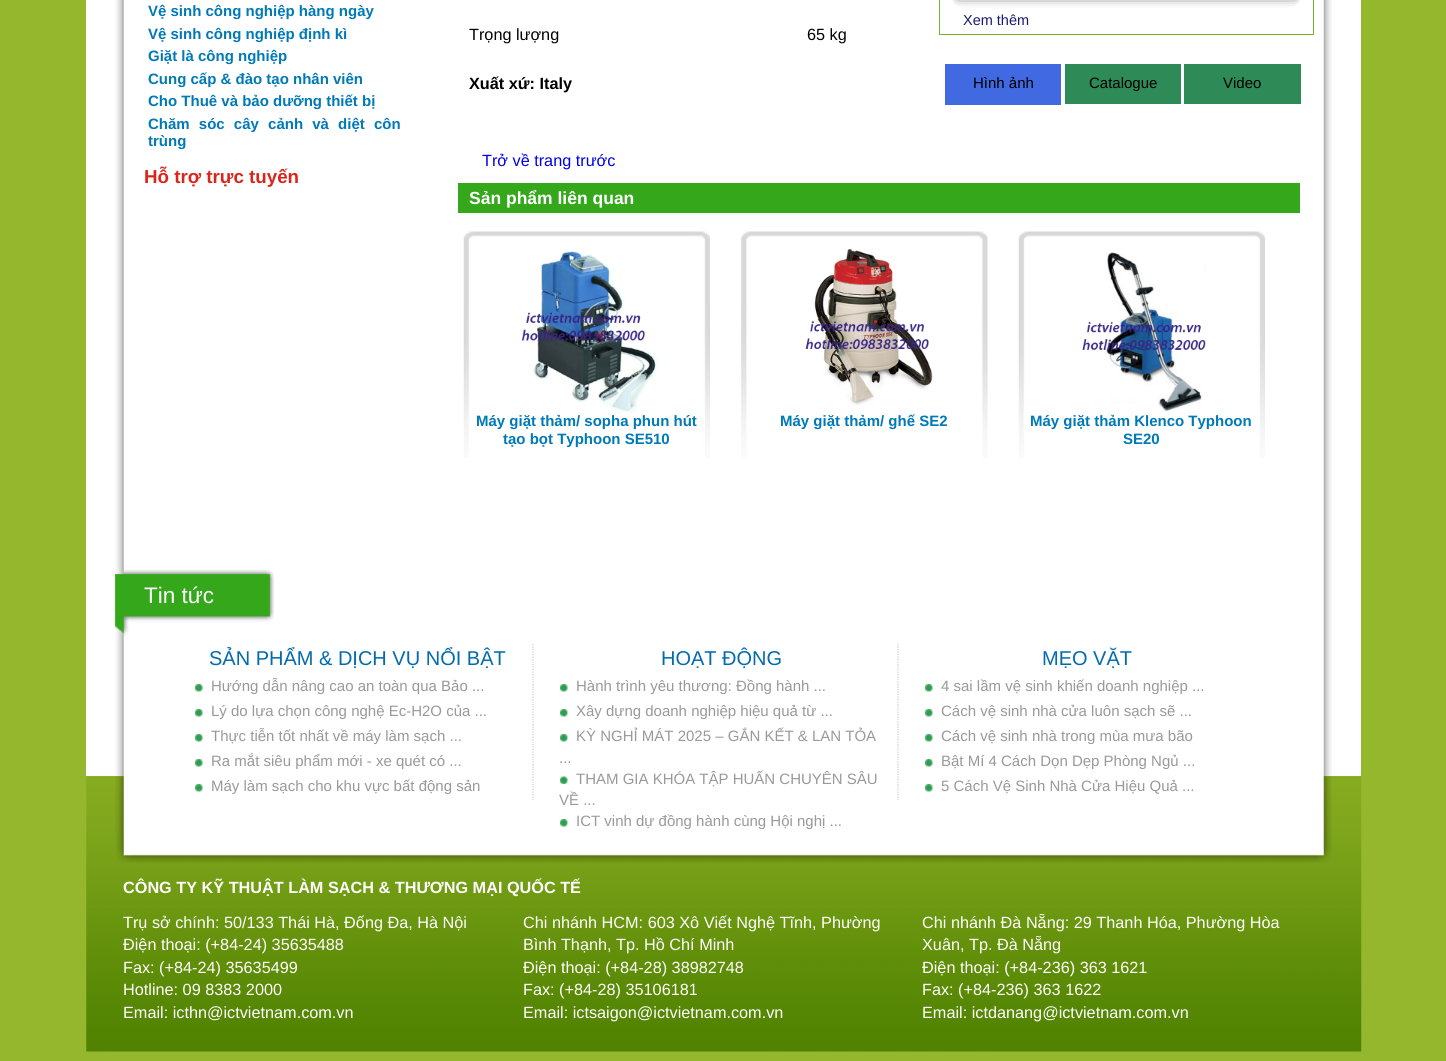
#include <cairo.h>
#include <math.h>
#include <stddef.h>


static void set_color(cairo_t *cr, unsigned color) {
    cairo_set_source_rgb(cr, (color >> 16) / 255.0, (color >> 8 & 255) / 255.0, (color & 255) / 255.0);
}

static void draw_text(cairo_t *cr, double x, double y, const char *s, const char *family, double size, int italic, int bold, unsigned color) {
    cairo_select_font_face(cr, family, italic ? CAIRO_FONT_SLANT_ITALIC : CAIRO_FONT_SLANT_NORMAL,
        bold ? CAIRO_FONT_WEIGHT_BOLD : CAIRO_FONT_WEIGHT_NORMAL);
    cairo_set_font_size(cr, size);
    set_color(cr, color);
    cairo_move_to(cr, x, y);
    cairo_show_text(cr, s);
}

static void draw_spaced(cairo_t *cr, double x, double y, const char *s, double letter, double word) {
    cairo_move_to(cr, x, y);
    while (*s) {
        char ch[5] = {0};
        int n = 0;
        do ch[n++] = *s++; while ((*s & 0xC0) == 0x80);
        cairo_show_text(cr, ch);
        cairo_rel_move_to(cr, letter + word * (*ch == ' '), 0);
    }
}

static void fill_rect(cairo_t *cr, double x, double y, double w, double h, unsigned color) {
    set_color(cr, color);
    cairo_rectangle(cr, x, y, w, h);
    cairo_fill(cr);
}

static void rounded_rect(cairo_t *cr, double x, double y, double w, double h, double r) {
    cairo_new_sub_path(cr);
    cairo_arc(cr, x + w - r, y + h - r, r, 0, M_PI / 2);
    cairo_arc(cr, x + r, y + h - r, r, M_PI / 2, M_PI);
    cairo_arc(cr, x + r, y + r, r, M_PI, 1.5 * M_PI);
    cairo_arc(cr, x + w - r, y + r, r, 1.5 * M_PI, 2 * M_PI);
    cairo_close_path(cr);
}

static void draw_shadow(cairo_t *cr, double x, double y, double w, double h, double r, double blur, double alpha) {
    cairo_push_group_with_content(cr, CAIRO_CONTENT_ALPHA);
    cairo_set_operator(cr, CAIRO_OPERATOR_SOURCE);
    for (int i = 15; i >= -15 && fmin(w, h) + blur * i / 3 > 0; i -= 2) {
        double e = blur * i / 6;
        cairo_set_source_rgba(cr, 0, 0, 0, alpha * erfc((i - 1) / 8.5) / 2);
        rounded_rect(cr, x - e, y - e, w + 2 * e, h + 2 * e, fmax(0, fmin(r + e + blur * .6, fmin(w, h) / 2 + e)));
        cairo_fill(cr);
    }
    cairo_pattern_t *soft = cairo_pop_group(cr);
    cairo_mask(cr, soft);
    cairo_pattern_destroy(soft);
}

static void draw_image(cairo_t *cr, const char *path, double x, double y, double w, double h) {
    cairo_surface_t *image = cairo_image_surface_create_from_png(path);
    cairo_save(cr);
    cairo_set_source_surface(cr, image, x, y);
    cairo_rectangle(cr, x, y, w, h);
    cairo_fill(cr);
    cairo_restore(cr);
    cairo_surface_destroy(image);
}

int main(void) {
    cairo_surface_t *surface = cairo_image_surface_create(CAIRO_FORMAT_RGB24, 1446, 1061);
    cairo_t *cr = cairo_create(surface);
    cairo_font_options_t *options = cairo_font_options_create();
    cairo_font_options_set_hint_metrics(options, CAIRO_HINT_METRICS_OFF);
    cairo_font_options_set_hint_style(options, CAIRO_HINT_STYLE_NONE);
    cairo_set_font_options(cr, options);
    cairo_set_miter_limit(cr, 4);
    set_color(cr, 0x95B72D);
    cairo_paint(cr);
    fill_rect(cr, 86, 0, 1275, 776, 0xFFFFFF);
    draw_image(cr, "assets/img13.png", 86, 776, 1276, 276);
    draw_image(cr, "assets/img1.png", 115, 0, 1217, 834);
    draw_text(cr, 148, 16, "Vệ sinh công nghiệp hàng ngày", "Liberation Sans", 15, 0, 1, 0x0079B7);
    draw_text(cr, 148, 39, "Vệ sinh công nghiệp định kì", "Liberation Sans", 15, 0, 1, 0x0079B7);
    draw_text(cr, 148, 61, "Giặt là công nghiệp", "Liberation Sans", 15, 0, 1, 0x0079B7);
    draw_text(cr, 148, 84, "Cung cấp & đào tạo nhân viên", "Liberation Sans", 15, 0, 1, 0x0079B7);
    draw_text(cr, 148, 106, "Cho Thuê và bảo dưỡng thiết bị", "Liberation Sans", 15, 0, 1, 0x0079B7);
    draw_spaced(cr, 148, 129, "Chăm sóc cây cảnh và diệt côn", 0, 5);
    draw_text(cr, 148, 146, "trùng", "Liberation Sans", 15, 0, 1, 0x0079B7);
    draw_text(cr, 144, 183, "Hỗ trợ trực tuyến", "Liberation Sans", 18.75, 0, 1, 0xDA251C);
    draw_text(cr, 469, 40, "Trọng lượng", "Liberation Sans", 16.25, 0, 0, 0x000000);
    draw_text(cr, 807, 40, "65 kg", "Liberation Sans", 16.25, 0, 0, 0x000000);
    draw_text(cr, 469, 89, "Xuất xứ: Italy", "Liberation Sans", 16.25, 0, 1, 0x000000);
    cairo_rectangle(cr, 939.5, -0.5, 374, 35);
    set_color(cr, 0x72B42D);
    cairo_set_line_width(cr, 1);
    cairo_stroke(cr);
    cairo_save(cr);
    rounded_rect(cr, 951, -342, 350, 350, 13);
    cairo_clip(cr);
    set_color(cr, 0x000000);
    draw_shadow(cr, 958, -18, 337, 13, 0, 6, 1);
    cairo_restore(cr);
    draw_text(cr, 963, 25, "Xem thêm", "Liberation Sans", 14.5, 0, 0, 0x191970);
    fill_rect(cr, 945, 64, 116, 41, 0x4169E1);
    draw_text(cr, 973, 88, "Hình ảnh", "Liberation Sans", 15, 0, 0, 0x000000);
    fill_rect(cr, 1065, 64, 116, 40, 0x2E8B57);
    draw_text(cr, 1089, 88, "Catalogue", "Liberation Sans", 15, 0, 0, 0x000000);
    fill_rect(cr, 1184, 64, 117, 40, 0x2E8B57);
    draw_text(cr, 1223, 88, "Video", "Liberation Sans", 15, 0, 0, 0x000000);
    draw_text(cr, 482, 166, "Trở về trang trước", "Liberation Sans", 16.25, 0, 0, 0x0000EE);
    fill_rect(cr, 458, 183, 842, 30, 0x35A71B);
    draw_text(cr, 469, 204, "Sản phẩm liên quan", "Liberation Sans", 17.5, 0, 1, 0xFFFFFF);
    draw_image(cr, "assets/img2.png", 463, 231, 247, 227);
    draw_image(cr, "assets/img3.png", 522, 251, 137, 162);
    draw_text(cr, 476, 426, "Máy giặt thảm/ sopha phun hút", "Liberation Sans", 15, 0, 1, 0x0079B7);
    draw_text(cr, 503, 444, "tạo bọt Typhoon SE510", "Liberation Sans", 15, 0, 1, 0x0079B7);
    draw_image(cr, "assets/img4.png", 741, 231, 247, 227);
    draw_image(cr, "assets/img5.png", 805, 248, 128, 158);
    draw_text(cr, 780, 426, "Máy giặt thảm/ ghế SE2", "Liberation Sans", 15, 0, 1, 0x0079B7);
    draw_image(cr, "assets/img6.png", 1018, 231, 247, 227);
    draw_image(cr, "assets/img7.png", 1082, 252, 124, 160);
    draw_text(cr, 1030, 426, "Máy giặt thảm Klenco Typhoon", "Liberation Sans", 15, 0, 1, 0x0079B7);
    draw_text(cr, 1123, 444, "SE20", "Liberation Sans", 15, 0, 1, 0x0079B7);
    draw_image(cr, "assets/img8.png", 114, 569, 160, 67);
    draw_text(cr, 144, 603, "Tin tức", "Liberation Sans", 22.5, 0, 0, 0xFFFFFF);
    draw_text(cr, 209, 665, "SẢN PHẨM & DỊCH VỤ NỔI BẬT", "Liberation Sans", 20, 0, 0, 0x026BAE);
    draw_image(cr, "assets/img9.png", 195, 684, 8, 8);
    draw_text(cr, 211, 691, "Hướng dẫn nâng cao an toàn qua Bảo ...", "Liberation Sans", 15, 0, 0, 0x999999);
    draw_image(cr, "assets/img9.png", 195, 709, 8, 8);
    draw_text(cr, 211, 716, "Lý do lựa chọn công nghệ Ec-H2O của ...", "Liberation Sans", 15, 0, 0, 0x999999);
    draw_image(cr, "assets/img9.png", 195, 734, 8, 8);
    draw_text(cr, 211, 741, "Thực tiễn tốt nhất về máy làm sạch ...", "Liberation Sans", 15, 0, 0, 0x999999);
    draw_image(cr, "assets/img9.png", 195, 759, 8, 8);
    draw_text(cr, 211, 766, "Ra mắt siêu phẩm mới - xe quét có ...", "Liberation Sans", 15, 0, 0, 0x999999);
    draw_image(cr, "assets/img9.png", 195, 784, 8, 8);
    draw_text(cr, 211, 791, "Máy làm sạch cho khu vực bất động sản", "Liberation Sans", 15, 0, 0, 0x999999);
    cairo_new_path(cr);
    cairo_move_to(cr, 533, 644);
    cairo_line_to(cr, 533, 800);
    set_color(cr, 0xCCCCCC);
    cairo_set_line_width(cr, 1.2);
    cairo_set_dash(cr, (double[]){1.25, 1.25}, 2, 0);
    cairo_stroke(cr);
    draw_text(cr, 661, 665, "HOẠT ĐỘNG", "Liberation Sans", 20, 0, 0, 0x026BAE);
    draw_image(cr, "assets/img10.png", 560, 684, 8, 8);
    draw_text(cr, 576, 691, "Hành trình yêu thương: Đồng hành ...", "Liberation Sans", 15, 0, 0, 0x999999);
    draw_image(cr, "assets/img10.png", 560, 709, 8, 8);
    draw_text(cr, 576, 716, "Xây dựng doanh nghiệp hiệu quả từ ...", "Liberation Sans", 15, 0, 0, 0x999999);
    draw_image(cr, "assets/img10.png", 560, 734, 8, 8);
    draw_text(cr, 576, 741, "KỲ NGHỈ MÁT 2025 – GẮN KẾT & LAN TỎA", "Liberation Sans", 15, 0, 0, 0x999999);
    draw_text(cr, 559, 763, "...", "Liberation Sans", 15, 0, 0, 0x999999);
    draw_image(cr, "assets/img11.png", 560, 776, 8, 8);
    draw_text(cr, 576, 784, "THAM GIA KHÓA TẬP HUẤN CHUYÊN SÂU", "Liberation Sans", 15, 0, 0, 0x999999);
    draw_text(cr, 559, 805, "VỀ ...", "Liberation Sans", 15, 0, 0, 0x999999);
    draw_image(cr, "assets/img10.png", 560, 819, 8, 8);
    draw_text(cr, 576, 826, "ICT vinh dự đồng hành cùng Hội nghị ...", "Liberation Sans", 15, 0, 0, 0x999999);
    cairo_new_path(cr);
    cairo_move_to(cr, 898, 644);
    cairo_line_to(cr, 898, 800);
    set_color(cr, 0xCCCCCC);
    cairo_stroke(cr);
    draw_text(cr, 1042, 665, "MẸO VẶT", "Liberation Sans", 20, 0, 0, 0x026BAE);
    draw_image(cr, "assets/img10.png", 925, 684, 8, 8);
    draw_text(cr, 941, 691, "4 sai lầm vệ sinh khiến doanh nghiệp ...", "Liberation Sans", 15, 0, 0, 0x999999);
    draw_image(cr, "assets/img10.png", 925, 709, 8, 8);
    draw_text(cr, 941, 716, "Cách vệ sinh nhà cửa luôn sạch sẽ ...", "Liberation Sans", 15, 0, 0, 0x999999);
    draw_image(cr, "assets/img10.png", 925, 734, 8, 8);
    draw_text(cr, 941, 741, "Cách vệ sinh nhà trong mùa mưa bão", "Liberation Sans", 15, 0, 0, 0x999999);
    draw_image(cr, "assets/img10.png", 925, 759, 8, 8);
    draw_text(cr, 941, 766, "Bật Mí 4 Cách Dọn Dẹp Phòng Ngủ ...", "Liberation Sans", 15, 0, 0, 0x999999);
    draw_image(cr, "assets/img10.png", 925, 784, 8, 8);
    draw_text(cr, 941, 791, "5 Cách Vệ Sinh Nhà Cửa Hiệu Quả ...", "Liberation Sans", 15, 0, 0, 0x999999);
    draw_image(cr, "assets/img12.png", 116, 834, 1216, 29);
    draw_text(cr, 123, 893, "CÔNG TY KỸ THUẬT LÀM SẠCH & THƯƠNG MẠI QUỐC TẾ", "Liberation Sans", 16.25, 0, 1, 0xFFFFFF);
    draw_text(cr, 123, 928, "Trụ sở chính: 50/133 Thái Hà, Đống Đa, Hà Nội", "Liberation Sans", 16.25, 0, 0, 0xFFFFFF);
    draw_text(cr, 123, 950, "Điện thoại: (+84-24) 35635488", "Liberation Sans", 16.25, 0, 0, 0xFFFFFF);
    draw_text(cr, 123, 973, "Fax: (+84-24) 35635499", "Liberation Sans", 16.25, 0, 0, 0xFFFFFF);
    draw_text(cr, 123, 995, "Hotline: 09 8383 2000", "Liberation Sans", 16.25, 0, 0, 0xFFFFFF);
    draw_text(cr, 123, 1018, "Email: icthn@ictvietnam.com.vn", "Liberation Sans", 16.25, 0, 0, 0xFFFFFF);
    draw_text(cr, 523, 928, "Chi nhánh HCM: 603 Xô Viết Nghệ Tĩnh, Phường", "Liberation Sans", 16.25, 0, 0, 0xFFFFFF);
    draw_text(cr, 523, 950, "Bình Thạnh, Tp. Hồ Chí Minh", "Liberation Sans", 16.25, 0, 0, 0xFFFFFF);
    draw_text(cr, 523, 973, "Điện thoại: (+84-28) 38982748", "Liberation Sans", 16.25, 0, 0, 0xFFFFFF);
    draw_text(cr, 523, 995, "Fax: (+84-28) 35106181", "Liberation Sans", 16.25, 0, 0, 0xFFFFFF);
    draw_text(cr, 523, 1018, "Email: ictsaigon@ictvietnam.com.vn", "Liberation Sans", 16.25, 0, 0, 0xFFFFFF);
    draw_text(cr, 922, 928, "Chi nhánh Đà Nẵng: 29 Thanh Hóa, Phường Hòa", "Liberation Sans", 16.25, 0, 0, 0xFFFFFF);
    draw_text(cr, 922, 950, "Xuân, Tp. Đà Nẵng", "Liberation Sans", 16.25, 0, 0, 0xFFFFFF);
    draw_text(cr, 922, 973, "Điện thoại: (+84-236) 363 1621", "Liberation Sans", 16.25, 0, 0, 0xFFFFFF);
    draw_text(cr, 922, 995, "Fax: (+84-236) 363 1622", "Liberation Sans", 16.25, 0, 0, 0xFFFFFF);
    draw_text(cr, 922, 1018, "Email: ictdanang@ictvietnam.com.vn", "Liberation Sans", 16.25, 0, 0, 0xFFFFFF);
    cairo_surface_write_to_png(surface, "output.png");
    cairo_font_options_destroy(options);
    cairo_destroy(cr);
    cairo_surface_destroy(surface);
    return 0;
}
